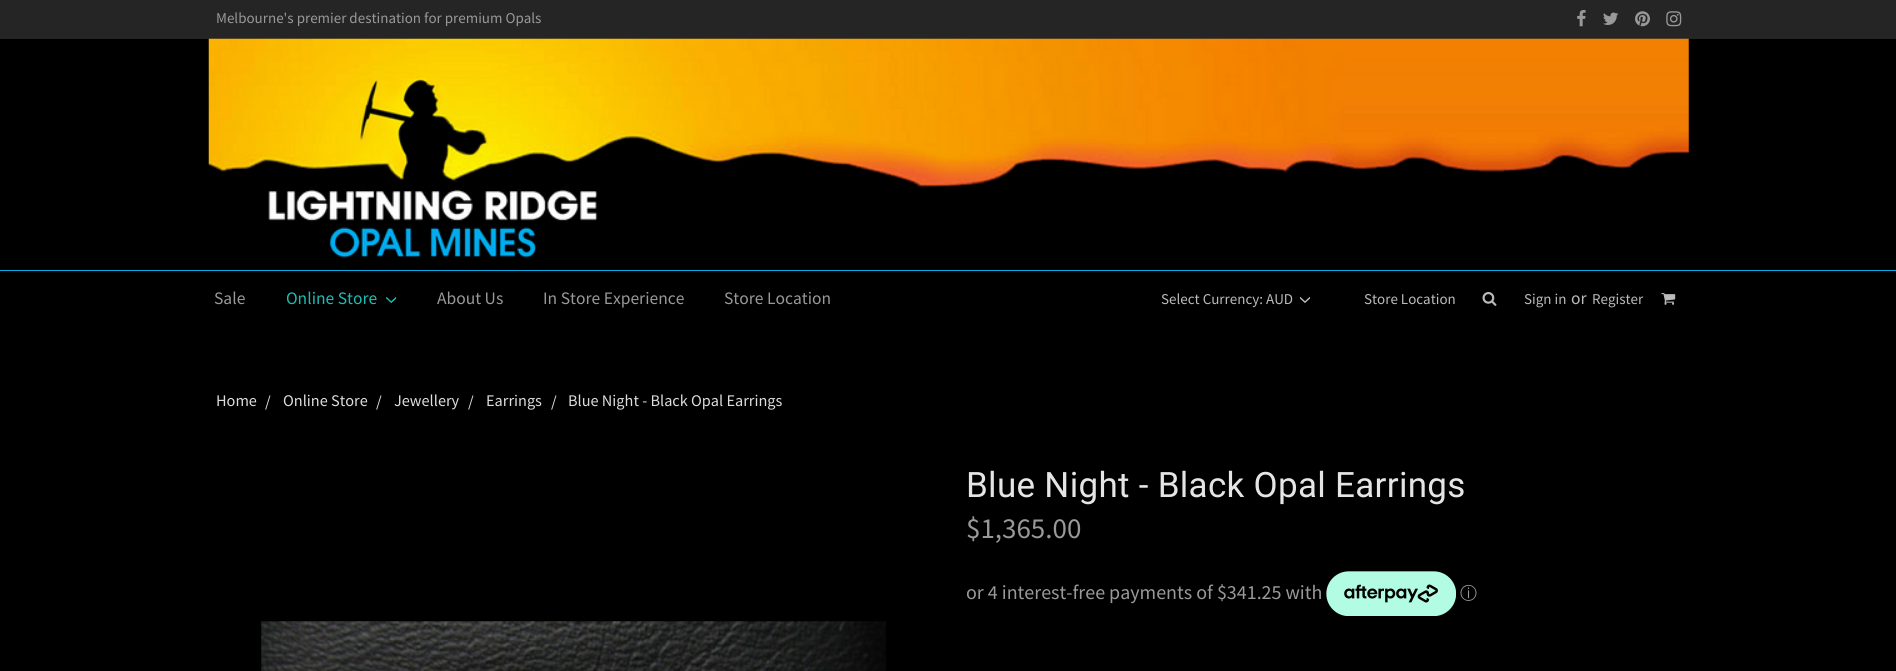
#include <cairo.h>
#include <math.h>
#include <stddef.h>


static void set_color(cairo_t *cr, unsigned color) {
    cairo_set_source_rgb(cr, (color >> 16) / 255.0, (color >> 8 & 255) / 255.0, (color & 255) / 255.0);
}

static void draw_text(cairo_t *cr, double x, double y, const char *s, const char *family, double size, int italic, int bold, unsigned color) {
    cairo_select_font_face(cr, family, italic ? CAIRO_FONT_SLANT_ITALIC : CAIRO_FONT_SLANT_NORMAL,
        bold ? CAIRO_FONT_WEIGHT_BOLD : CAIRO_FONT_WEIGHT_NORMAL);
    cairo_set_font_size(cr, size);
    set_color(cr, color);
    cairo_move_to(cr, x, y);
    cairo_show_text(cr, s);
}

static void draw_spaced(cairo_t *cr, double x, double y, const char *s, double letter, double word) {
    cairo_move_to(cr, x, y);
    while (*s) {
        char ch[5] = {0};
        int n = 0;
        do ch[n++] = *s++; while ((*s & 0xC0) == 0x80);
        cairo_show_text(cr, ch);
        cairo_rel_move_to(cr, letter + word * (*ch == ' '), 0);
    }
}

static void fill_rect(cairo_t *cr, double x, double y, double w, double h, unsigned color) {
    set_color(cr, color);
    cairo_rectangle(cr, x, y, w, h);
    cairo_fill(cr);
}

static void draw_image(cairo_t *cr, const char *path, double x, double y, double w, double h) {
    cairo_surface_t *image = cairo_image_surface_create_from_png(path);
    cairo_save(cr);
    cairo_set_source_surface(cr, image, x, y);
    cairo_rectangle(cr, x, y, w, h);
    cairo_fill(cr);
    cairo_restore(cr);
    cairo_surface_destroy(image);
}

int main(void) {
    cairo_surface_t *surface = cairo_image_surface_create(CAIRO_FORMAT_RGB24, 1896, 671);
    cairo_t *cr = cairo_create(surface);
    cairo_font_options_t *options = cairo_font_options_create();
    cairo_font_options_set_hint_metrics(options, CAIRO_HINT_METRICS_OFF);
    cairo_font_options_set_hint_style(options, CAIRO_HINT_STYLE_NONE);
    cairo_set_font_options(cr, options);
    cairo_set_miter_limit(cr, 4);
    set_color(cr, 0x000000);
    cairo_paint(cr);
    fill_rect(cr, 0, 0, 1896, 39, 0x252525);
    draw_text(cr, 216, 23, "Melbourne's premier destination for premium Opals", "Source Sans Pro", 15, 0, 0, 0x999999);
    draw_image(cr, "assets/img1.png", 1577, 10, 9, 17);
    draw_image(cr, "assets/img2.png", 1603, 12, 16, 13);
    draw_image(cr, "assets/img3.png", 1635, 11, 15, 16);
    draw_image(cr, "assets/img4.png", 1666, 11, 16, 16);
    draw_image(cr, "assets/img5.png", 208, 38, 1481, 220);
    fill_rect(cr, 0, 270, 1896, 1, 0x06ABE3);
    draw_text(cr, 214, 304, "Sale", "Source Sans Pro", 17.5, 0, 0, 0x999999);
    draw_text(cr, 286, 304, "Online Store", "Source Sans Pro", 17.5, 0, 0, 0x1BBEB4);
    draw_image(cr, "assets/img6.png", 386, 297, 10, 6);
    draw_text(cr, 437, 304, "About Us", "Source Sans Pro", 17.5, 0, 0, 0x999999);
    draw_text(cr, 543, 304, "In Store Experience", "Source Sans Pro", 17.5, 0, 0, 0x999999);
    draw_text(cr, 724, 304, "Store Location", "Source Sans Pro", 17.5, 0, 0, 0x999999);
    draw_text(cr, 1161, 304, "Select Currency: AUD", "Source Sans Pro", 15, 0, 0, 0xBBBBBB);
    draw_image(cr, "assets/img7.png", 1300, 297, 10, 6);
    draw_text(cr, 1364, 304, "Store Location", "Source Sans Pro", 15, 0, 0, 0xBBBBBB);
    draw_image(cr, "assets/img8.png", 1482, 292, 15, 14);
    draw_text(cr, 1524, 304, "Sign in", "Source Sans Pro", 15, 0, 0, 0xBBBBBB);
    draw_text(cr, 1571, 304, "or", "Source Sans Pro", 17.5, 0, 0, 0xBBBBBB);
    draw_text(cr, 1592, 304, "Register", "Source Sans Pro", 15, 0, 0, 0xBBBBBB);
    draw_image(cr, "assets/img9.png", 1661, 293, 15, 12);
    draw_text(cr, 216, 406, "Home", "Source Sans Pro", 16.25, 0, 0, 0xDDDDDD);
    draw_text(cr, 265, 407, "/", "Source Sans Pro", 16.25, 0, 0, 0xDDDDDD);
    draw_text(cr, 283, 406, "Online Store", "Source Sans Pro", 16.25, 0, 0, 0xDDDDDD);
    draw_text(cr, 376, 407, "/", "Source Sans Pro", 16.25, 0, 0, 0xDDDDDD);
    draw_text(cr, 394, 406, "Jewellery", "Source Sans Pro", 16.25, 0, 0, 0xDDDDDD);
    draw_text(cr, 468, 407, "/", "Source Sans Pro", 16.25, 0, 0, 0xDDDDDD);
    draw_text(cr, 486, 406, "Earrings", "Source Sans Pro", 16.25, 0, 0, 0xDDDDDD);
    draw_text(cr, 551, 407, "/", "Source Sans Pro", 16.25, 0, 0, 0xDDDDDD);
    draw_text(cr, 568, 406, "Blue Night - Black Opal Earrings", "Source Sans Pro", 16.25, 0, 0, 0xDDDDDD);
    cairo_select_font_face(cr, "Roboto", CAIRO_FONT_SLANT_NORMAL, CAIRO_FONT_WEIGHT_NORMAL);
    cairo_set_font_size(cr, 35);
    set_color(cr, 0xE5E5E5);
    draw_spaced(cr, 966, 497, "Blue Night - Black Opal Earrings", 0.3, 0);
    draw_text(cr, 966, 538, "$1,365.00", "Source Sans Pro", 29, 0, 0, 0x999999);
    draw_text(cr, 966, 599, "or 4 interest-free payments of $341.25 with", "Source Sans Pro", 20, 0, 0, 0x999999);
    draw_image(cr, "assets/img10.png", 1326, 571, 130, 45);
    draw_text(cr, 1460, 599, "ⓘ", "WenQuanYi Zen Hei Medium", 17, 0, 0, 0x999999);
    draw_image(cr, "assets/img11.png", 261, 621, 625, 50);
    cairo_surface_write_to_png(surface, "output.png");
    cairo_font_options_destroy(options);
    cairo_destroy(cr);
    cairo_surface_destroy(surface);
    return 0;
}
